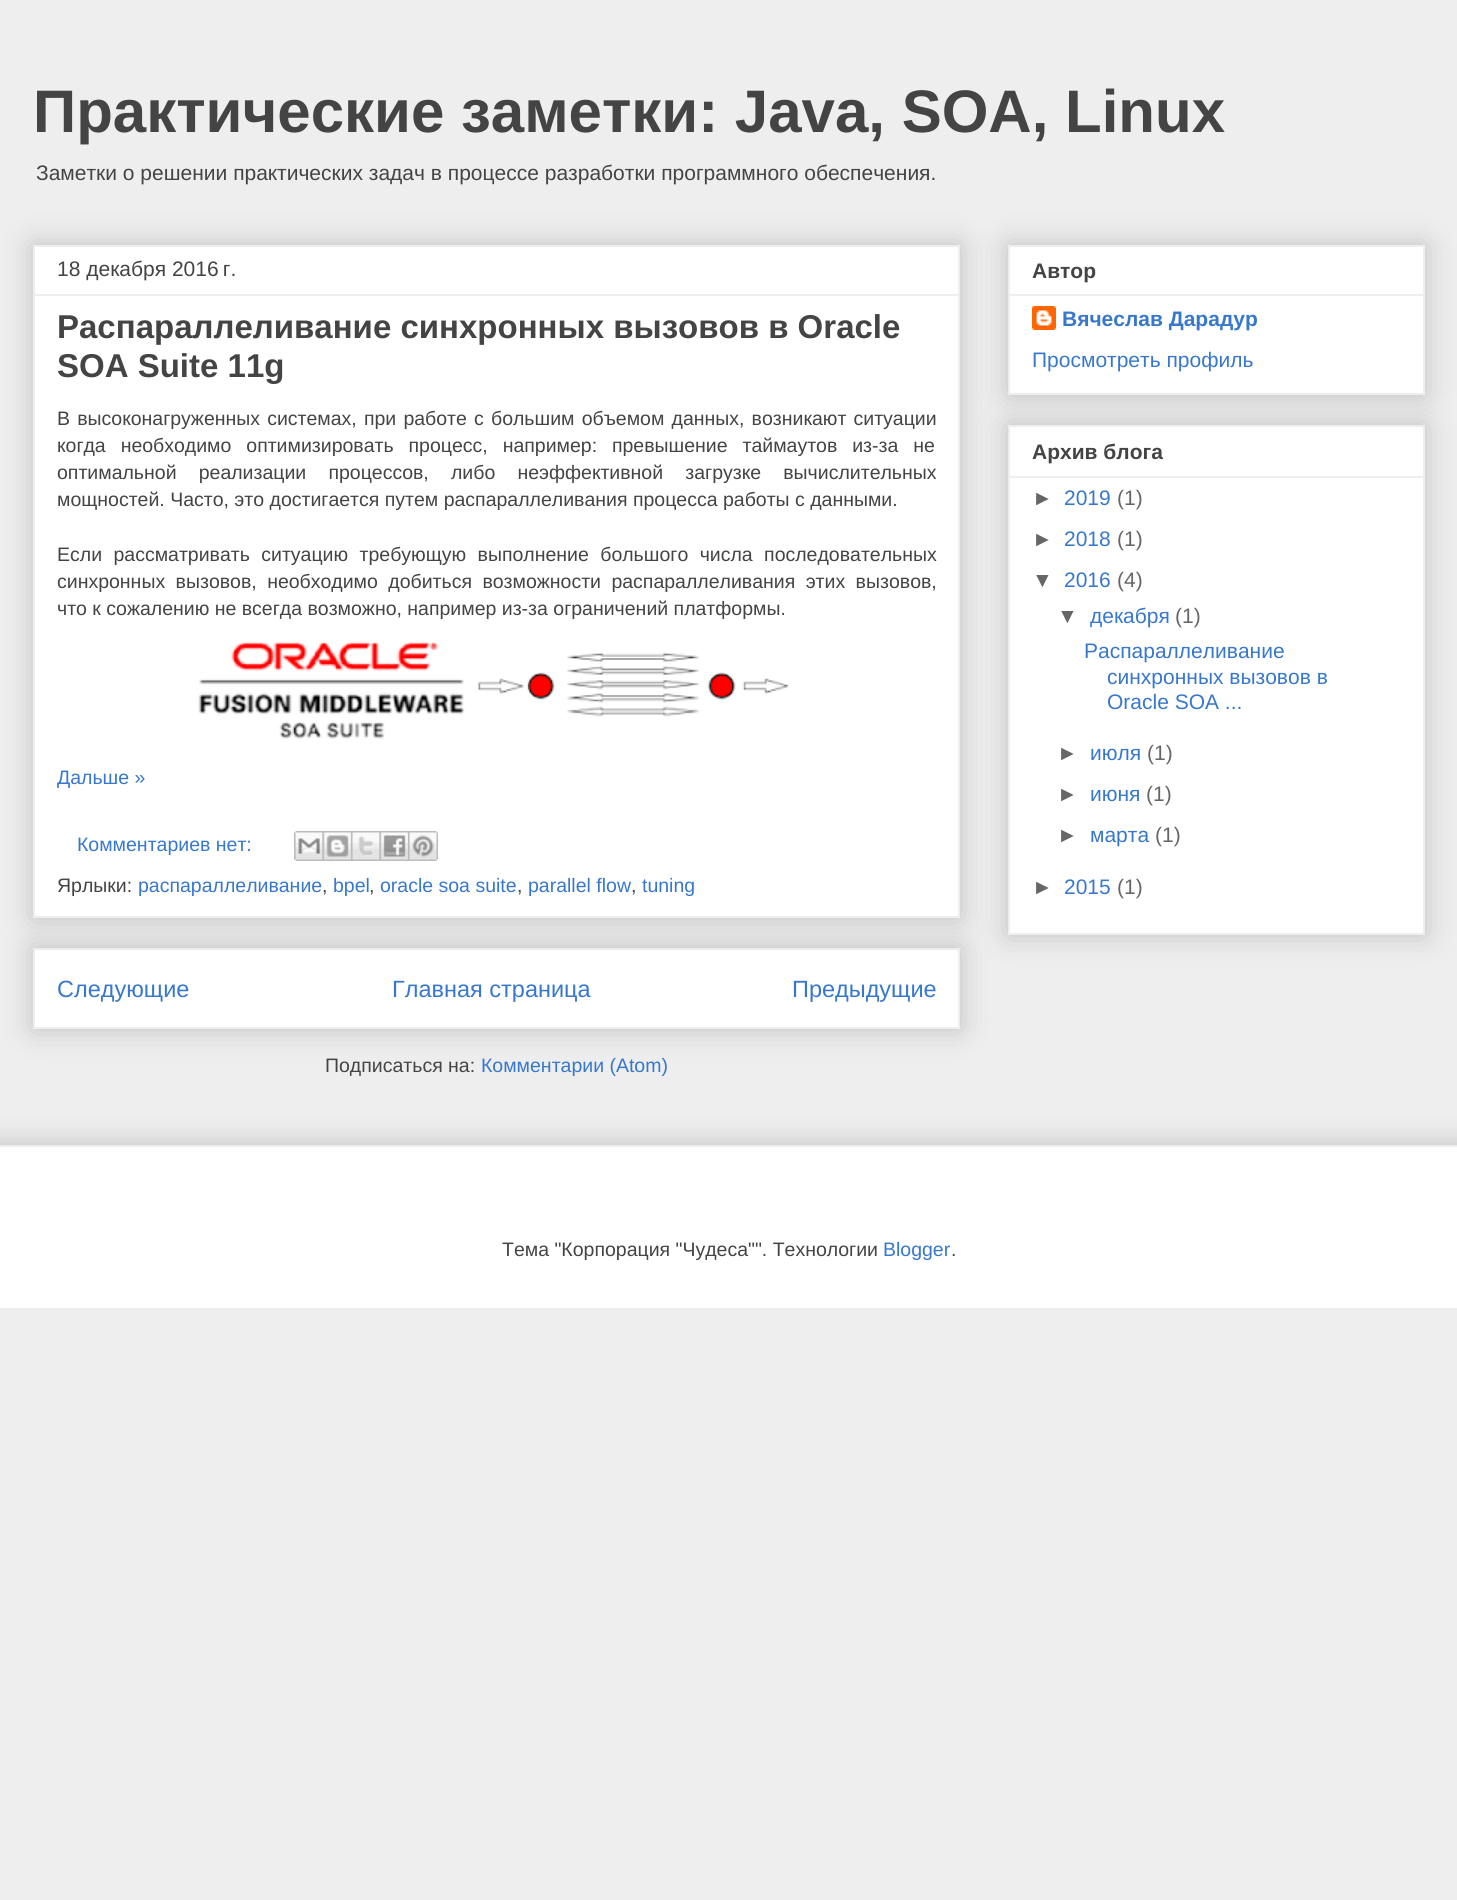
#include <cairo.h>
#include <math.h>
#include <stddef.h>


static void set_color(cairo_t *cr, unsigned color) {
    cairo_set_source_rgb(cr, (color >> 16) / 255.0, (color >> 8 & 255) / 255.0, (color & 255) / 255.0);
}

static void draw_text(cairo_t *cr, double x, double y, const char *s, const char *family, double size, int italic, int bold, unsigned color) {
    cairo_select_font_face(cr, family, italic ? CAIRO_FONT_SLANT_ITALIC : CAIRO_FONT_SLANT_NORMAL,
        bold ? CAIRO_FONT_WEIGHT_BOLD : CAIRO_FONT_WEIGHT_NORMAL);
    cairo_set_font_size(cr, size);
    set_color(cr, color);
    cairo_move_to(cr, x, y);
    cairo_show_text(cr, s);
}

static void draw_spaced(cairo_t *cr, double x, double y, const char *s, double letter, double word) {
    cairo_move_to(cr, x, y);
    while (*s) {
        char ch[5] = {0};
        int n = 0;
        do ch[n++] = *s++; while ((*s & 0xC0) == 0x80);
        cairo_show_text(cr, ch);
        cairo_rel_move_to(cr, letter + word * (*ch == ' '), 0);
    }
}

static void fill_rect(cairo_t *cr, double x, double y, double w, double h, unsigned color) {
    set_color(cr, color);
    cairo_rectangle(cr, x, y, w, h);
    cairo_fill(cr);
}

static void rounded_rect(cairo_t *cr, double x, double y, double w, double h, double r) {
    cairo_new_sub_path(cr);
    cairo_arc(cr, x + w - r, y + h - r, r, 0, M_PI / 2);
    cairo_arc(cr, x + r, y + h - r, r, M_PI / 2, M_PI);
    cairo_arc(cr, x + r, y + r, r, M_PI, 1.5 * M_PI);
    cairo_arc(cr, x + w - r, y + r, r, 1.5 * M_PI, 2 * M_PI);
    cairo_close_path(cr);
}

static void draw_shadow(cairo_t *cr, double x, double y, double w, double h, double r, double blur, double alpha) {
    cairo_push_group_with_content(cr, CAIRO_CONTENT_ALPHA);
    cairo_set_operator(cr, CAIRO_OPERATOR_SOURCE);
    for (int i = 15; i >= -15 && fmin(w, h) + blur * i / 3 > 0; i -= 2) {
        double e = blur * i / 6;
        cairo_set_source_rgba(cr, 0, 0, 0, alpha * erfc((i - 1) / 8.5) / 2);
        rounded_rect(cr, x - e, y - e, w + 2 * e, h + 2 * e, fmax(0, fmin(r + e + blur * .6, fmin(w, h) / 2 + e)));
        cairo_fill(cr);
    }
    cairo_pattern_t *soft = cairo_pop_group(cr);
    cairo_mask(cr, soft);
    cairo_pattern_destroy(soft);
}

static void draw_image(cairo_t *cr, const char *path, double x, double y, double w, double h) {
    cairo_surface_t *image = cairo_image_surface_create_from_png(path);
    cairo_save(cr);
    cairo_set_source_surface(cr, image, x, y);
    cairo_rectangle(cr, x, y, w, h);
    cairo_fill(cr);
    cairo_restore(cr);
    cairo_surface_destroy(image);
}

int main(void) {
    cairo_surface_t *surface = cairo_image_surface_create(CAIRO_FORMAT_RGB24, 1457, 1900);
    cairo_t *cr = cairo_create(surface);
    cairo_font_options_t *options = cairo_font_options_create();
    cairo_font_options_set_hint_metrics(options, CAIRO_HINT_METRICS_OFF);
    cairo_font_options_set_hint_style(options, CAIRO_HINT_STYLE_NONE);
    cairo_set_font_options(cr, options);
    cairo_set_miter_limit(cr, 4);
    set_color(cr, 0xEEEEEE);
    cairo_paint(cr);
    draw_text(cr, 33, 132, "Практические заметки: Java, SOA, Linux", "Liberation Sans", 60, 0, 1, 0x444444);
    draw_text(cr, 36, 180, "Заметки о решении практических задач в процессе разработки программного обеспечения.", "Liberation Sans", 21, 0, 0, 0x444444);
    set_color(cr, 0x000000);
    draw_shadow(cr, 33, 948, 927, 81, 0, 15, 0.2);
    set_color(cr, 0xFFFFFF);
    cairo_rectangle(cr, 34, 949, 925, 79);
    cairo_fill_preserve(cr);
    set_color(cr, 0xEEEEEE);
    cairo_stroke(cr);
    set_color(cr, 0x000000);
    draw_shadow(cr, 33, 245, 927, 673, 0, 15, 0.2);
    set_color(cr, 0xFFFFFF);
    cairo_rectangle(cr, 34, 246, 925, 671);
    cairo_fill_preserve(cr);
    set_color(cr, 0xEEEEEE);
    cairo_stroke(cr);
    draw_text(cr, 57, 276, "18 декабря 2016 г.", "Liberation Sans", 21, 0, 0, 0x444444);
    fill_rect(cr, 35, 294, 924, 2, 0xEEEEEE);
    draw_text(cr, 57, 338, "Распараллеливание синхронных вызовов в Oracle", "Liberation Sans", 33, 0, 1, 0x444444);
    draw_text(cr, 57, 377, "SOA Suite 11g", "Liberation Sans", 33, 0, 1, 0x444444);
    cairo_select_font_face(cr, "Liberation Sans", CAIRO_FONT_SLANT_NORMAL, CAIRO_FONT_WEIGHT_NORMAL);
    cairo_set_font_size(cr, 19.5);
    draw_spaced(cr, 57, 425, "В высоконагруженных системах, при работе с большим объемом данных, возникают ситуации", 0, 1.75);
    draw_spaced(cr, 57, 452, "когда необходимо оптимизировать процесс, например: превышение таймаутов из-за не", 0, 9.5);
    draw_spaced(cr, 57, 479, "оптимальной реализации процессов, либо неэффективной загрузке вычислительных", 0, 16.75);
    draw_text(cr, 57, 506, "мощностей. Часто, это достигается путем распараллеливания процесса работы с данными.", "Liberation Sans", 19.5, 0, 0, 0x444444);
    draw_spaced(cr, 57, 561, "Если рассматривать ситуацию требующую выполнение большого числа последовательных", 0, 6);
    draw_spaced(cr, 57, 588, "синхронных вызовов, необходимо добиться возможности распараллеливания этих вызовов,", 0, 5);
    draw_text(cr, 57, 615, "что к сожалению не всегда возможно, например из-за ограничений платформы.", "Liberation Sans", 19.5, 0, 0, 0x444444);
    draw_image(cr, "assets/img1.png", 198, 641, 592, 98);
    draw_text(cr, 57, 784, "Дальше »", "Liberation Sans", 19.5, 0, 0, 0x3778CD);
    draw_text(cr, 77, 851, "Комментариев нет:", "Liberation Sans", 19.5, 0, 0, 0x3778CD);
    draw_image(cr, "assets/img2.png", 294, 831, 29, 30);
    draw_image(cr, "assets/img3.png", 322, 831, 29, 30);
    draw_image(cr, "assets/img4.png", 351, 831, 29, 30);
    draw_image(cr, "assets/img5.png", 379, 831, 29, 30);
    draw_image(cr, "assets/img6.png", 408, 831, 30, 30);
    draw_text(cr, 57, 892, "Ярлыки:", "Liberation Sans", 19.5, 0, 0, 0x444444);
    draw_text(cr, 138, 892, "распараллеливание", "Liberation Sans", 19.5, 0, 0, 0x3778CD);
    draw_text(cr, 322, 892, ",", "Liberation Sans", 19.5, 0, 0, 0x444444);
    draw_text(cr, 333, 892, "bpel", "Liberation Sans", 19.5, 0, 0, 0x3778CD);
    draw_text(cr, 369, 892, ",", "Liberation Sans", 19.5, 0, 0, 0x444444);
    draw_text(cr, 380, 892, "oracle soa suite", "Liberation Sans", 19.5, 0, 0, 0x3778CD);
    draw_text(cr, 517, 892, ",", "Liberation Sans", 19.5, 0, 0, 0x444444);
    draw_text(cr, 528, 892, "parallel flow", "Liberation Sans", 19.5, 0, 0, 0x3778CD);
    draw_text(cr, 631, 892, ",", "Liberation Sans", 19.5, 0, 0, 0x444444);
    draw_text(cr, 642, 892, "tuning", "Liberation Sans", 19.5, 0, 0, 0x3778CD);
    draw_text(cr, 57, 997, "Следующие", "Liberation Sans", 23.5, 0, 0, 0x3778CD);
    draw_text(cr, 392, 997, "Главная страница", "Liberation Sans", 23.5, 0, 0, 0x3778CD);
    draw_text(cr, 792, 997, "Предыдущие", "Liberation Sans", 23.5, 0, 0, 0x3778CD);
    draw_text(cr, 325, 1072, "Подписаться на:", "Liberation Sans", 19.5, 0, 0, 0x444444);
    draw_text(cr, 481, 1072, "Комментарии (Atom)", "Liberation Sans", 19.5, 0, 0, 0x3778CD);
    set_color(cr, 0x000000);
    draw_shadow(cr, 1008, 245, 417, 150, 0, 15, 0.2);
    set_color(cr, 0xFFFFFF);
    cairo_rectangle(cr, 1009, 246, 415, 148);
    cairo_fill_preserve(cr);
    set_color(cr, 0xEEEEEE);
    cairo_stroke(cr);
    draw_text(cr, 1032, 278, "Автор", "Liberation Sans", 21, 0, 1, 0x444444);
    fill_rect(cr, 1010, 294, 414, 2, 0xEEEEEE);
    draw_image(cr, "assets/img7.png", 1032, 306, 24, 24);
    draw_text(cr, 1062, 326, "Вячеслав Дарадур", "Liberation Sans", 21, 0, 1, 0x3778CD);
    draw_text(cr, 1032, 367, "Просмотреть профиль", "Liberation Sans", 21, 0, 0, 0x3778CD);
    set_color(cr, 0x000000);
    draw_shadow(cr, 1008, 425, 417, 510, 0, 15, 0.2);
    set_color(cr, 0xFFFFFF);
    cairo_rectangle(cr, 1009, 426, 415, 508);
    cairo_fill_preserve(cr);
    set_color(cr, 0xEEEEEE);
    cairo_stroke(cr);
    draw_text(cr, 1032, 459, "Архив блога", "Liberation Sans", 21, 0, 1, 0x444444);
    fill_rect(cr, 1010, 476, 414, 2, 0xEEEEEE);
    draw_text(cr, 1032, 505, "►", "Liberation Sans", 21, 0, 0, 0x666666);
    draw_text(cr, 1064, 505, "2019", "Liberation Sans", 21, 0, 0, 0x3778CD);
    draw_text(cr, 1117, 505, "(1)", "Liberation Sans", 21, 0, 0, 0x666666);
    draw_text(cr, 1032, 546, "►", "Liberation Sans", 21, 0, 0, 0x666666);
    draw_text(cr, 1064, 546, "2018", "Liberation Sans", 21, 0, 0, 0x3778CD);
    draw_text(cr, 1117, 546, "(1)", "Liberation Sans", 21, 0, 0, 0x666666);
    draw_text(cr, 1032, 587, "▼", "Liberation Sans", 21, 0, 0, 0x666666);
    draw_text(cr, 1064, 587, "2016", "Liberation Sans", 21, 0, 0, 0x3778CD);
    draw_text(cr, 1117, 587, "(4)", "Liberation Sans", 21, 0, 0, 0x666666);
    draw_text(cr, 1057, 623, "▼", "Liberation Sans", 21, 0, 0, 0x666666);
    draw_text(cr, 1090, 623, "декабря", "Liberation Sans", 21, 0, 0, 0x3778CD);
    draw_text(cr, 1175, 623, "(1)", "Liberation Sans", 21, 0, 0, 0x666666);
    draw_text(cr, 1084, 658, "Распараллеливание", "Liberation Sans", 21, 0, 0, 0x3778CD);
    draw_text(cr, 1107, 684, "синхронных вызовов в", "Liberation Sans", 21, 0, 0, 0x3778CD);
    draw_text(cr, 1107, 709, "Oracle SOA ...", "Liberation Sans", 21, 0, 0, 0x3778CD);
    draw_text(cr, 1057, 760, "►", "Liberation Sans", 21, 0, 0, 0x666666);
    draw_text(cr, 1090, 760, "июля", "Liberation Sans", 21, 0, 0, 0x3778CD);
    draw_text(cr, 1147, 760, "(1)", "Liberation Sans", 21, 0, 0, 0x666666);
    draw_text(cr, 1057, 801, "►", "Liberation Sans", 21, 0, 0, 0x666666);
    draw_text(cr, 1090, 801, "июня", "Liberation Sans", 21, 0, 0, 0x3778CD);
    draw_text(cr, 1146, 801, "(1)", "Liberation Sans", 21, 0, 0, 0x666666);
    draw_text(cr, 1057, 842, "►", "Liberation Sans", 21, 0, 0, 0x666666);
    draw_text(cr, 1090, 842, "марта", "Liberation Sans", 21, 0, 0, 0x3778CD);
    draw_text(cr, 1155, 842, "(1)", "Liberation Sans", 21, 0, 0, 0x666666);
    draw_text(cr, 1032, 894, "►", "Liberation Sans", 21, 0, 0, 0x666666);
    draw_text(cr, 1064, 894, "2015", "Liberation Sans", 21, 0, 0, 0x3778CD);
    draw_text(cr, 1117, 894, "(1)", "Liberation Sans", 21, 0, 0, 0x666666);
    cairo_save(cr);
    cairo_rectangle(cr, 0, 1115, 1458, 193);
    cairo_clip(cr);
    set_color(cr, 0x000000);
    draw_shadow(cr, -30, 1145, 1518, 163, 0, 15, 0.2);
    cairo_restore(cr);
    fill_rect(cr, 0, 1147, 1457, 161, 0xFFFFFF);
    fill_rect(cr, 0, 1145, 1457, 2, 0xEEEEEE);
    draw_text(cr, 502, 1256, "Тема \"Корпорация \"Чудеса\"\". Технологии", "Liberation Sans", 19.5, 0, 0, 0x444444);
    draw_text(cr, 883, 1256, "Blogger", "Liberation Sans", 19.5, 0, 0, 0x3778CD);
    draw_text(cr, 951, 1256, ".", "Liberation Sans", 19.5, 0, 0, 0x444444);
    cairo_surface_write_to_png(surface, "output.png");
    cairo_font_options_destroy(options);
    cairo_destroy(cr);
    cairo_surface_destroy(surface);
    return 0;
}
